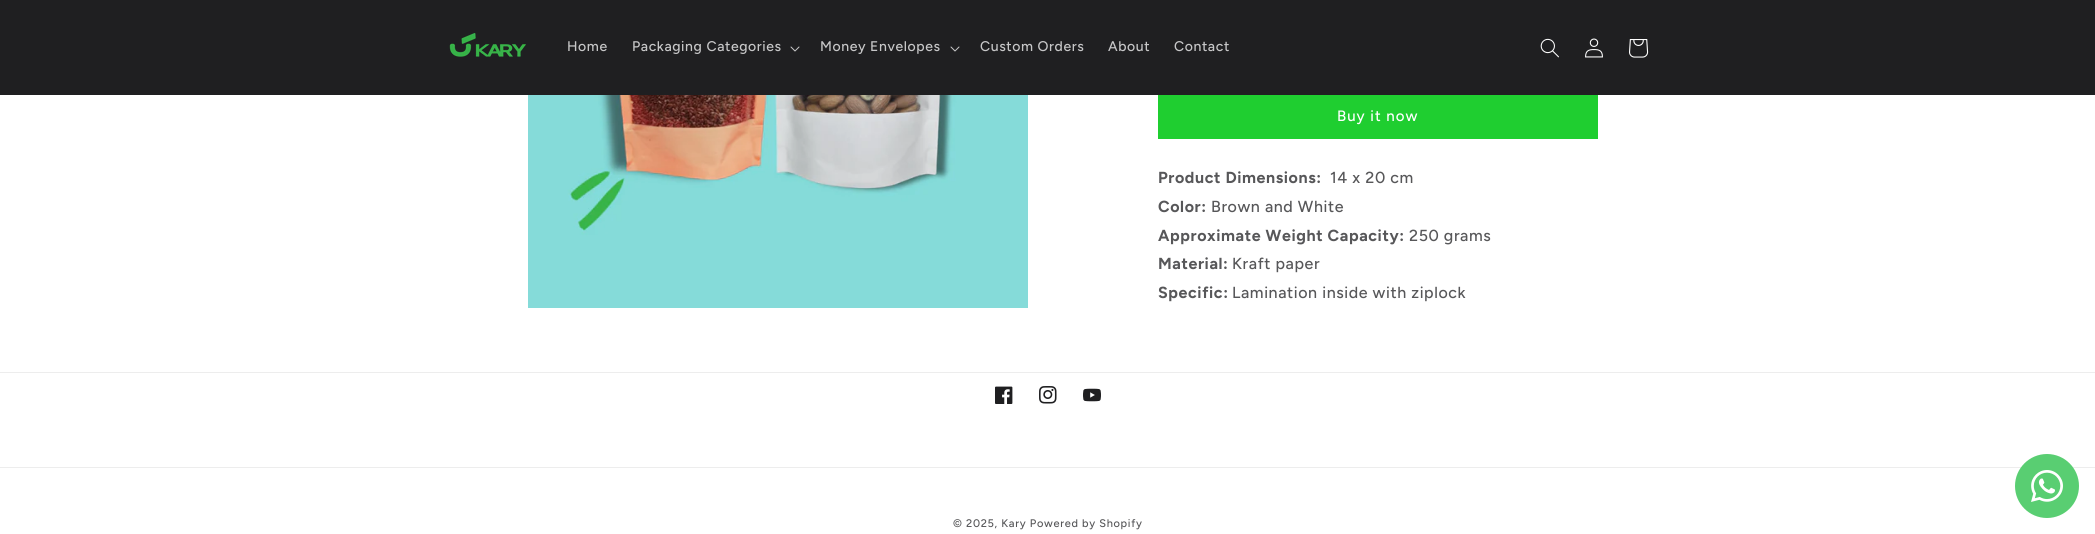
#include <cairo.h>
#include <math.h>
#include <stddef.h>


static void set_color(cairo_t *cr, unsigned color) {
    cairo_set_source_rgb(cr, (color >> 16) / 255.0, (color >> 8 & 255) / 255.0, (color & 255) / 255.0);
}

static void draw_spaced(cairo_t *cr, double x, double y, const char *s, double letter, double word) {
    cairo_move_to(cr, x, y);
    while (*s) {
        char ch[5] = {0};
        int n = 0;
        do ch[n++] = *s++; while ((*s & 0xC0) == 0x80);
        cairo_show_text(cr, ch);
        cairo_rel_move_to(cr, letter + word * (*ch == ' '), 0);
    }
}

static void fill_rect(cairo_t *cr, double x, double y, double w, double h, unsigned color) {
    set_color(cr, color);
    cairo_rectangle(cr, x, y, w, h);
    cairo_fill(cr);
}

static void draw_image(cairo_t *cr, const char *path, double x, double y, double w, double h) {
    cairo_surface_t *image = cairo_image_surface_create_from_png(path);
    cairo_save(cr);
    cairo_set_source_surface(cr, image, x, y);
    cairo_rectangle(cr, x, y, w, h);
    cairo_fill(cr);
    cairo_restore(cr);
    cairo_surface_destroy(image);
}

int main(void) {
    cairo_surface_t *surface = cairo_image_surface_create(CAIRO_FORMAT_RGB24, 2095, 534);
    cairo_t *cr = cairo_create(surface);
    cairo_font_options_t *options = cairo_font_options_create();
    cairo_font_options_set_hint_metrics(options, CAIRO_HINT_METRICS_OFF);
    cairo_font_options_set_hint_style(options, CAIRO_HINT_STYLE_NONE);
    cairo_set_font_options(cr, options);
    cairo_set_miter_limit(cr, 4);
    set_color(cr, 0xFFFFFF);
    cairo_paint(cr);
    fill_rect(cr, 0, 0, 2095, 95, 0x1F1F21);
    draw_image(cr, "assets/img1.png", 449, 33, 77, 24);
    cairo_select_font_face(cr, "Figtree Medium", CAIRO_FONT_SLANT_NORMAL, CAIRO_FONT_WEIGHT_NORMAL);
    cairo_set_font_size(cr, 14);
    set_color(cr, 0xC7C7C8);
    draw_spaced(cr, 567, 51, "Home", 0.6, 0);
    draw_spaced(cr, 632, 51, "Packaging Categories", 0.6, 0);
    draw_image(cr, "assets/img2.png", 790, 46, 10, 6);
    draw_spaced(cr, 820, 51, "Money Envelopes", 0.6, 0);
    draw_image(cr, "assets/img2.png", 950, 46, 10, 6);
    draw_spaced(cr, 980, 51, "Custom Orders", 0.6, 0);
    draw_spaced(cr, 1108, 51, "About", 0.6, 0);
    draw_spaced(cr, 1174, 51, "Contact", 0.6, 0);
    draw_image(cr, "assets/img3.png", 1540, 38, 19, 20);
    draw_image(cr, "assets/img4.png", 1585, 38, 18, 20);
    draw_image(cr, "assets/img5.png", 1629, 39, 20, 19);
    draw_image(cr, "assets/img6.png", 528, 95, 500, 213);
    fill_rect(cr, 1158, 95, 440, 44, 0x1FCE30);
    cairo_set_font_size(cr, 15);
    set_color(cr, 0xFFFFFF);
    draw_spaced(cr, 1337, 121, "Buy it now", 1, 0);
    cairo_select_font_face(cr, "Figtree", CAIRO_FONT_SLANT_NORMAL, CAIRO_FONT_WEIGHT_BOLD);
    cairo_set_font_size(cr, 16);
    set_color(cr, 0x575759);
    draw_spaced(cr, 1158, 183, "Product Dimensions:", 0.6, 0);
    cairo_select_font_face(cr, "Figtree Medium", CAIRO_FONT_SLANT_NORMAL, CAIRO_FONT_WEIGHT_NORMAL);
    draw_spaced(cr, 1330, 183, "14 x 20 cm", 0.6, 0);
    cairo_select_font_face(cr, "Figtree", CAIRO_FONT_SLANT_NORMAL, CAIRO_FONT_WEIGHT_BOLD);
    draw_spaced(cr, 1158, 212, "Color:", 0.6, 0);
    cairo_select_font_face(cr, "Figtree Medium", CAIRO_FONT_SLANT_NORMAL, CAIRO_FONT_WEIGHT_NORMAL);
    draw_spaced(cr, 1211, 212, "Brown and White", 0.6, 0);
    cairo_select_font_face(cr, "Figtree", CAIRO_FONT_SLANT_NORMAL, CAIRO_FONT_WEIGHT_BOLD);
    draw_spaced(cr, 1158, 241, "Approximate Weight Capacity:", 0.6, 0);
    cairo_select_font_face(cr, "Figtree Medium", CAIRO_FONT_SLANT_NORMAL, CAIRO_FONT_WEIGHT_NORMAL);
    draw_spaced(cr, 1409, 241, "250 grams", 0.6, 0);
    cairo_select_font_face(cr, "Figtree", CAIRO_FONT_SLANT_NORMAL, CAIRO_FONT_WEIGHT_BOLD);
    draw_spaced(cr, 1158, 269, "Material:", 0.6, 0);
    cairo_select_font_face(cr, "Figtree Medium", CAIRO_FONT_SLANT_NORMAL, CAIRO_FONT_WEIGHT_NORMAL);
    draw_spaced(cr, 1232, 269, "Kraft paper", 0.6, 0);
    cairo_select_font_face(cr, "Figtree", CAIRO_FONT_SLANT_NORMAL, CAIRO_FONT_WEIGHT_BOLD);
    draw_spaced(cr, 1158, 298, "Specific:", 0.6, 0);
    cairo_select_font_face(cr, "Figtree Medium", CAIRO_FONT_SLANT_NORMAL, CAIRO_FONT_WEIGHT_NORMAL);
    draw_spaced(cr, 1232, 298, "Lamination inside with ziplock", 0.6, 0);
    fill_rect(cr, 0, 467, 2095, 1, 0xEDEDED);
    set_color(cr, 0x59CE72);
    cairo_new_path(cr);
    cairo_arc(cr, 2047, 486, 32, 0, 2 * M_PI);
    cairo_fill(cr);
    draw_image(cr, "assets/img7.png", 2031, 470, 32, 32);
    fill_rect(cr, 0, 372, 2095, 1, 0xEDEDED);
    draw_image(cr, "assets/img8.png", 995, 386, 18, 18);
    draw_image(cr, "assets/img9.png", 1039, 386, 18, 18);
    draw_image(cr, "assets/img10.png", 1083, 388, 18, 14);
    cairo_set_font_size(cr, 11);
    set_color(cr, 0x575759);
    draw_spaced(cr, 953, 527, "© 2025, Kary Powered by Shopify", 0.7, 0);
    cairo_surface_write_to_png(surface, "output.png");
    cairo_font_options_destroy(options);
    cairo_destroy(cr);
    cairo_surface_destroy(surface);
    return 0;
}
